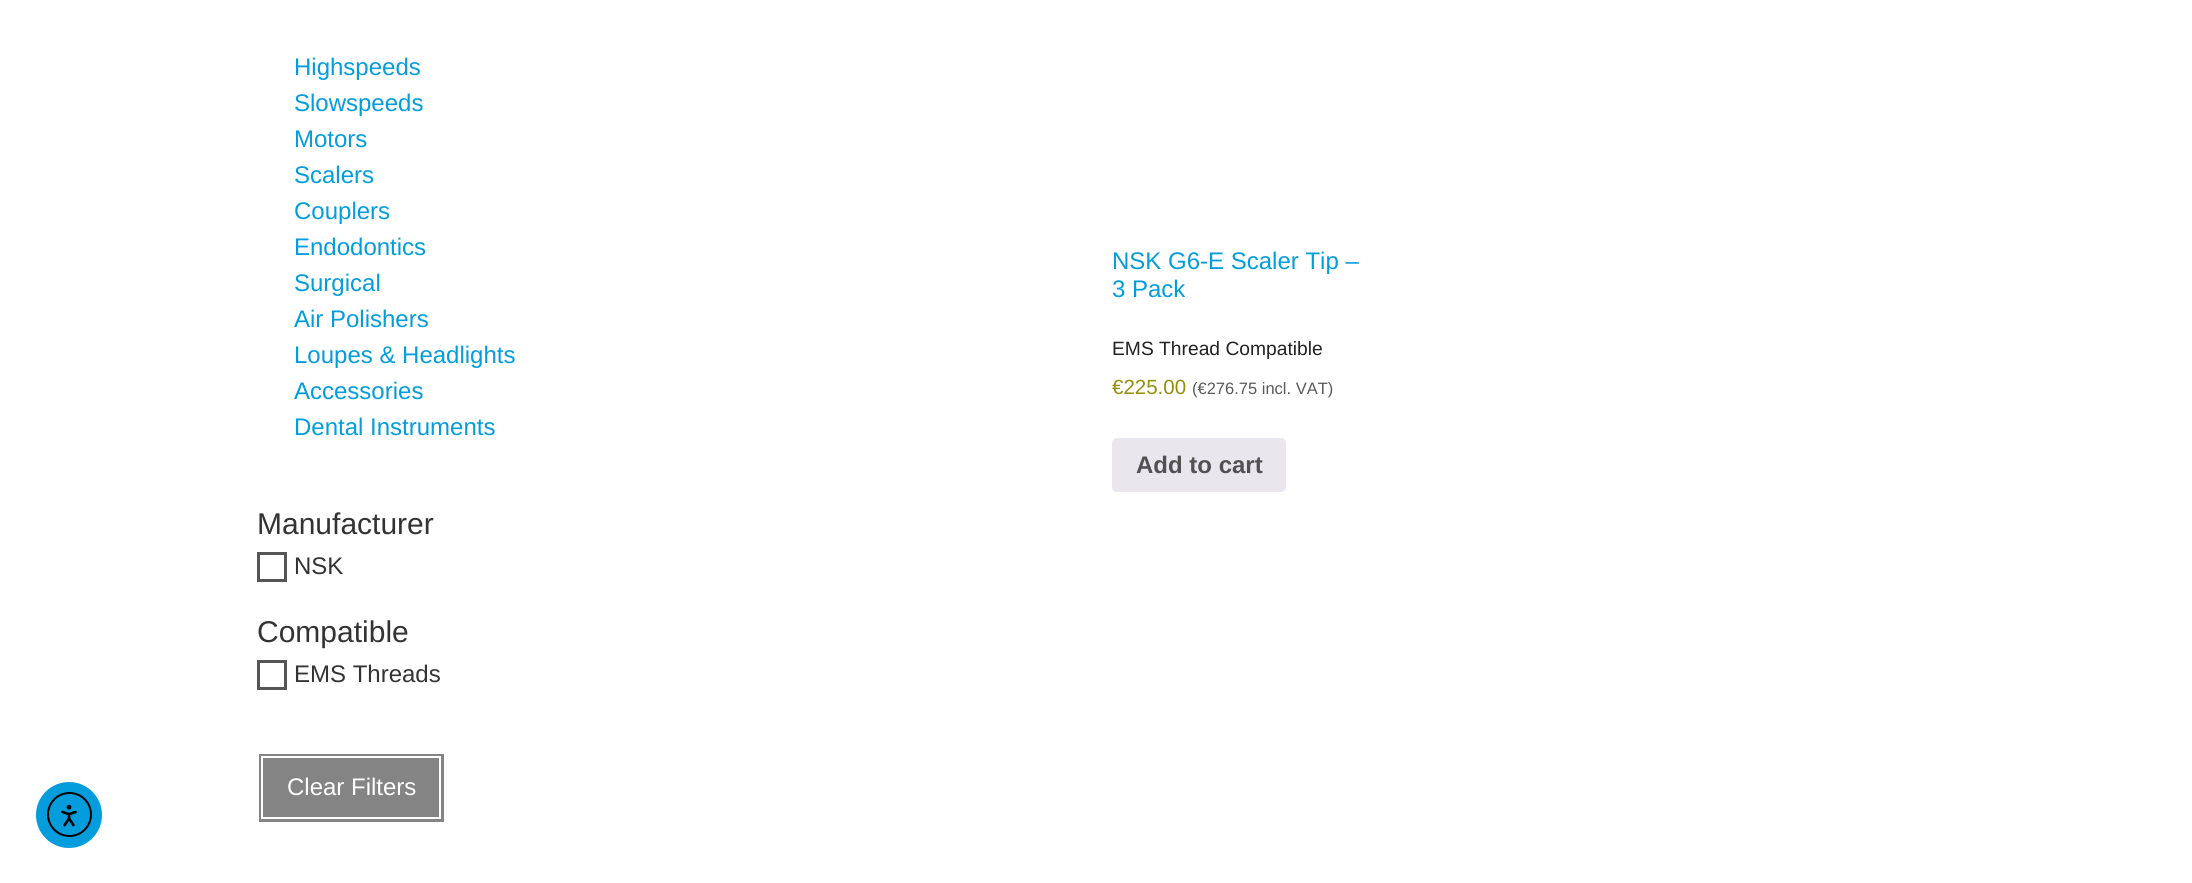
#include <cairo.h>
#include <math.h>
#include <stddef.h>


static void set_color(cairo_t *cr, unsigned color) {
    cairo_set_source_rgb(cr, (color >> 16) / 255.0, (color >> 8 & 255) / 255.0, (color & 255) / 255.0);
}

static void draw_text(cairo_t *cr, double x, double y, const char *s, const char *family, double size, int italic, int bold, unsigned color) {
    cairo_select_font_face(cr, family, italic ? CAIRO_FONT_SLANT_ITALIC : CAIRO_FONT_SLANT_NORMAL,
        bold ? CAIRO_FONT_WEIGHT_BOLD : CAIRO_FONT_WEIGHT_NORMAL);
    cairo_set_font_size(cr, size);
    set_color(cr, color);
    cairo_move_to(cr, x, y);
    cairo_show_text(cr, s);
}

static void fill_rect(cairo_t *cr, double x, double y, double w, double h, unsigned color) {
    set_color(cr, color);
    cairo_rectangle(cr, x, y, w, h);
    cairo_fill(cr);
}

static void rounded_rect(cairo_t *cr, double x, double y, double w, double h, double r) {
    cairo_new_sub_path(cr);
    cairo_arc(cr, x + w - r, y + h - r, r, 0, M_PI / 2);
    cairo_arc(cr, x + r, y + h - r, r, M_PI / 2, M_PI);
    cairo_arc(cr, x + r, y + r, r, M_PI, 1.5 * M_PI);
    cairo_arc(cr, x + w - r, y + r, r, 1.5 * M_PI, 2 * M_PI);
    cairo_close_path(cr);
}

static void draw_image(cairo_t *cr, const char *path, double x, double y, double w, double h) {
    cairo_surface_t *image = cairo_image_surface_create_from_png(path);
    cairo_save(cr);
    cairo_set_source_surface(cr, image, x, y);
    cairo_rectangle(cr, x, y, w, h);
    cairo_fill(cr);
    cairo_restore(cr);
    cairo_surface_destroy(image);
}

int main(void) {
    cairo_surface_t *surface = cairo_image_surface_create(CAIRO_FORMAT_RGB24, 2192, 883);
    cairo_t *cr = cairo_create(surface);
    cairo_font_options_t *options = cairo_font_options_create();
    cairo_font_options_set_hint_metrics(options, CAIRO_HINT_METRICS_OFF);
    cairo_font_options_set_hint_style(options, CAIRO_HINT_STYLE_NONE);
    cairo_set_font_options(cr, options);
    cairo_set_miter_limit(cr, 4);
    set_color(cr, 0xFFFFFF);
    cairo_paint(cr);
    draw_text(cr, 294, 75, "Highspeeds", "Liberation Sans", 24, 0, 0, 0x039DDD);
    draw_text(cr, 294, 111, "Slowspeeds", "Liberation Sans", 24, 0, 0, 0x039DDD);
    draw_text(cr, 294, 147, "Motors", "Liberation Sans", 24, 0, 0, 0x039DDD);
    draw_text(cr, 294, 183, "Scalers", "Liberation Sans", 24, 0, 0, 0x039DDD);
    draw_text(cr, 294, 219, "Couplers", "Liberation Sans", 24, 0, 0, 0x039DDD);
    draw_text(cr, 294, 255, "Endodontics", "Liberation Sans", 24, 0, 0, 0x039DDD);
    draw_text(cr, 294, 291, "Surgical", "Liberation Sans", 24, 0, 0, 0x039DDD);
    draw_text(cr, 294, 327, "Air Polishers", "Liberation Sans", 24, 0, 0, 0x039DDD);
    draw_text(cr, 294, 363, "Loupes & Headlights", "Liberation Sans", 24, 0, 0, 0x039DDD);
    draw_text(cr, 294, 399, "Accessories", "Liberation Sans", 24, 0, 0, 0x039DDD);
    draw_text(cr, 294, 435, "Dental Instruments", "Liberation Sans", 24, 0, 0, 0x039DDD);
    draw_text(cr, 257, 534, "Manufacturer", "Liberation Sans", 30, 0, 0, 0x333333);
    cairo_rectangle(cr, 258.5, 553.5, 27, 27);
    set_color(cr, 0x555555);
    cairo_set_line_width(cr, 3);
    cairo_stroke(cr);
    draw_text(cr, 294, 574, "NSK", "Liberation Sans", 24, 0, 0, 0x333333);
    draw_text(cr, 257, 642, "Compatible", "Liberation Sans", 30, 0, 0, 0x333333);
    cairo_rectangle(cr, 258.5, 661.5, 27, 27);
    set_color(cr, 0x555555);
    cairo_stroke(cr);
    draw_text(cr, 294, 682, "EMS Threads", "Liberation Sans", 24, 0, 0, 0x333333);
    fill_rect(cr, 259, 754, 185, 68, 0x848484);
    cairo_rectangle(cr, 262, 757, 178, 61);
    set_color(cr, 0xFFFFFF);
    cairo_set_line_width(cr, 2);
    cairo_stroke(cr);
    draw_text(cr, 287, 795, "Clear Filters", "Liberation Sans", 24, 0, 0, 0xFFFFFF);
    draw_text(cr, 1112, 269, "NSK G6-E Scaler Tip –", "Liberation Sans", 24, 0, 0, 0x039DDD);
    draw_text(cr, 1112, 297, "3 Pack", "Liberation Sans", 24, 0, 0, 0x039DDD);
    draw_text(cr, 1112, 355, "EMS Thread Compatible", "Liberation Sans", 19.25, 0, 0, 0x222222);
    draw_text(cr, 1112, 394, "€225.00", "Liberation Sans", 20.5, 0, 0, 0x958E09);
    draw_text(cr, 1192, 394, "(€276.75 incl. VAT)", "Liberation Sans", 16.5, 0, 0, 0x595959);
    set_color(cr, 0xE9E6ED);
    rounded_rect(cr, 1112, 438, 174, 54, 5);
    cairo_fill(cr);
    draw_text(cr, 1136, 473, "Add to cart", "Liberation Sans", 24, 0, 1, 0x515151);
    set_color(cr, 0x039DDD);
    cairo_new_path(cr);
    cairo_arc(cr, 69, 815, 33, 0, 2 * M_PI);
    cairo_fill(cr);
    cairo_arc(cr, 69.5, 814.5, 21.5, 0, 2 * M_PI);
    set_color(cr, 0x000000);
    cairo_stroke(cr);
    draw_image(cr, "assets/img1.png", 61, 804, 16, 23);
    cairo_surface_write_to_png(surface, "output.png");
    cairo_font_options_destroy(options);
    cairo_destroy(cr);
    cairo_surface_destroy(surface);
    return 0;
}
